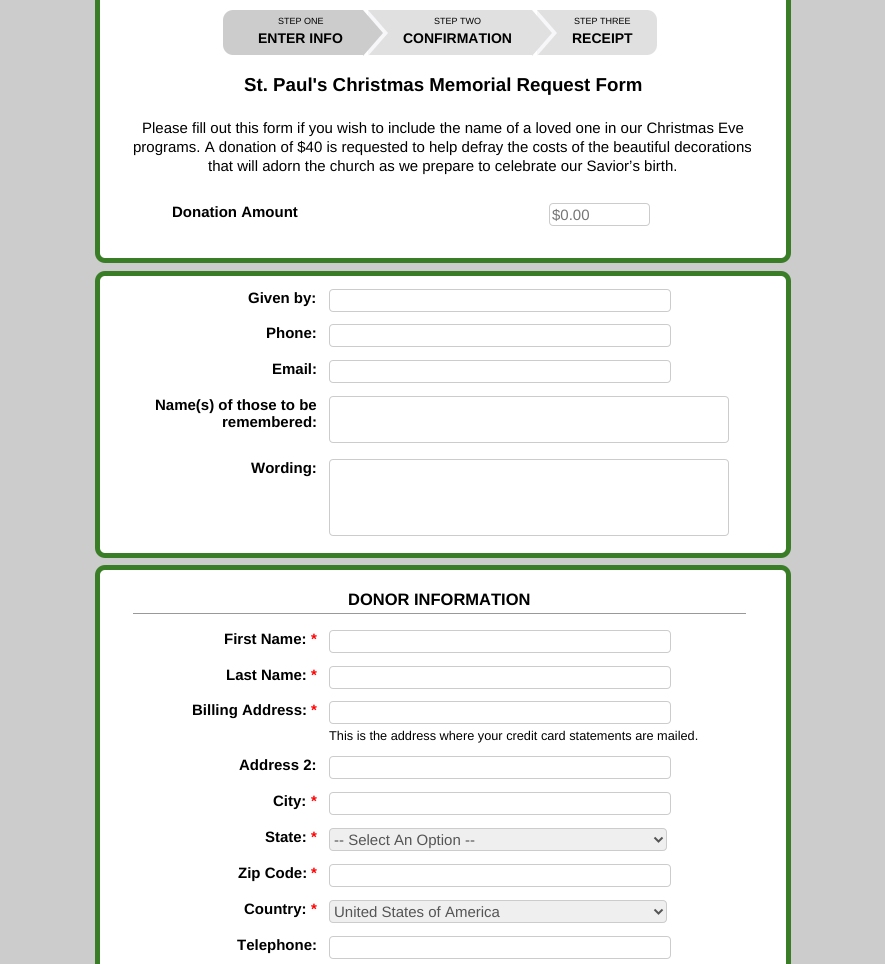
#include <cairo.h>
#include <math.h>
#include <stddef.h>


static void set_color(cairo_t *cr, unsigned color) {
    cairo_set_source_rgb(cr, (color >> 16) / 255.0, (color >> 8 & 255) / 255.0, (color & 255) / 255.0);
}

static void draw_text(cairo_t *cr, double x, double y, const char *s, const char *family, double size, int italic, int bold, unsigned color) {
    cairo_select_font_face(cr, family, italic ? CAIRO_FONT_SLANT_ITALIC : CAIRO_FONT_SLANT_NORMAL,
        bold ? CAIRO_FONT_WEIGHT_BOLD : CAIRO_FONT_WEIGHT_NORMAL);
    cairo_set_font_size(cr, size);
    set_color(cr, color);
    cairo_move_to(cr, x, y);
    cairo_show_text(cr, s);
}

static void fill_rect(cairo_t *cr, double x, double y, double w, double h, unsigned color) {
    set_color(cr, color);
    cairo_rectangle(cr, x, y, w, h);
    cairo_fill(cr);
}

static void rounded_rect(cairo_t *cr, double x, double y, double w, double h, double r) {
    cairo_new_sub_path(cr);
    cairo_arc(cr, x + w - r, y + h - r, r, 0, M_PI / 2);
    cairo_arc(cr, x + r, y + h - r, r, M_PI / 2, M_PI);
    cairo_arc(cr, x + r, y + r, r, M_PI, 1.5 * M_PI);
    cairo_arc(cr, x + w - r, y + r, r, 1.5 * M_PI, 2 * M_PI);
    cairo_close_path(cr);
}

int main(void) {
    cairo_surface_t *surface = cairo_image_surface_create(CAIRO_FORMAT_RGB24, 885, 964);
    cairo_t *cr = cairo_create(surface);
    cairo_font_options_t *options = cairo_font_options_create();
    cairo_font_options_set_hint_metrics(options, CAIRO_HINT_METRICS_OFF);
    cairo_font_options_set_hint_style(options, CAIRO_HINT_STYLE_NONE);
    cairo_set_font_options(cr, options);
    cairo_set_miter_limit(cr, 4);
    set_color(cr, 0xCCCCCC);
    cairo_paint(cr);
    set_color(cr, 0xFFFFFF);
    rounded_rect(cr, 97.5, -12.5, 691, 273, 7.5);
    cairo_fill_preserve(cr);
    set_color(cr, 0x397D27);
    cairo_set_line_width(cr, 5);
    cairo_stroke(cr);
    set_color(cr, 0xCCCCCC);
    cairo_new_path(cr);
    cairo_move_to(cr, 233, 10);
    cairo_line_to(cr, 363, 10);
    cairo_line_to(cr, 363, 55);
    cairo_line_to(cr, 233, 55);
    cairo_curve_to(cr, 227.5, 55, 223, 50.5, 223, 45);
    cairo_line_to(cr, 223, 20);
    cairo_curve_to(cr, 223, 14.5, 227.5, 10, 233, 10);
    cairo_close_path(cr);
    cairo_fill(cr);
    draw_text(cr, 278, 24, "STEP ONE", "Liberation Sans", 9, 0, 0, 0x000000);
    fill_rect(cr, 368, 10, 164, 45, 0xE0E0E0);
    set_color(cr, 0xF7F7F9);
    cairo_new_path(cr);
    cairo_move_to(cr, 368, 56);
    cairo_line_to(cr, 368, 10);
    cairo_line_to(cr, 388, 33);
    cairo_close_path(cr);
    cairo_fill(cr);
    set_color(cr, 0xCCCCCC);
    cairo_new_path(cr);
    cairo_move_to(cr, 363, 56);
    cairo_line_to(cr, 363, 10);
    cairo_line_to(cr, 383, 33);
    cairo_close_path(cr);
    cairo_fill(cr);
    draw_text(cr, 258, 43, "ENTER INFO", "Liberation Sans", 14, 0, 1, 0x000000);
    draw_text(cr, 434, 24, "STEP TWO", "Liberation Sans", 9, 0, 0, 0x000000);
    set_color(cr, 0xE0E0E0);
    cairo_new_path(cr);
    cairo_move_to(cr, 537, 10);
    cairo_line_to(cr, 647, 10);
    cairo_curve_to(cr, 652.5, 10, 657, 14.5, 657, 20);
    cairo_line_to(cr, 657, 45);
    cairo_curve_to(cr, 657, 50.5, 652.5, 55, 647, 55);
    cairo_line_to(cr, 537, 55);
    cairo_close_path(cr);
    cairo_fill(cr);
    set_color(cr, 0xF7F7F9);
    cairo_new_path(cr);
    cairo_move_to(cr, 537, 56);
    cairo_line_to(cr, 537, 10);
    cairo_line_to(cr, 557, 33);
    cairo_close_path(cr);
    cairo_fill(cr);
    set_color(cr, 0xE0E0E0);
    cairo_new_path(cr);
    cairo_move_to(cr, 532, 56);
    cairo_line_to(cr, 532, 10);
    cairo_line_to(cr, 552, 33);
    cairo_close_path(cr);
    cairo_fill(cr);
    draw_text(cr, 403, 43, "CONFIRMATION", "Liberation Sans", 14, 0, 1, 0x000000);
    draw_text(cr, 574, 24, "STEP THREE", "Liberation Sans", 9, 0, 0, 0x000000);
    draw_text(cr, 572, 43, "RECEIPT", "Liberation Sans", 14, 0, 1, 0x000000);
    draw_text(cr, 244, 91, "St. Paul's Christmas Memorial Request Form", "Liberation Sans", 18.7, 0, 1, 0x000000);
    draw_text(cr, 142, 133, "Please fill out this form if you wish to include the name of a loved one in our Christmas Eve", "Liberation Sans", 15, 0, 0, 0x000000);
    draw_text(cr, 133, 152, "programs. A donation of $40 is requested to help defray the costs of the beautiful decorations", "Liberation Sans", 15, 0, 0, 0x000000);
    draw_text(cr, 208, 171, "that will adorn the church as we prepare to celebrate our Savior’s birth.", "Liberation Sans", 15, 0, 0, 0x000000);
    draw_text(cr, 172, 217, "Donation Amount", "Liberation Sans", 15, 0, 1, 0x000000);
    rounded_rect(cr, 549.5, 203.5, 100, 22, 3.5);
    set_color(cr, 0xCCCCCC);
    cairo_set_line_width(cr, 1);
    cairo_stroke(cr);
    draw_text(cr, 552, 220, "$0.00", "Liberation Sans", 15, 0, 0, 0x757575);
    set_color(cr, 0xFFFFFF);
    rounded_rect(cr, 97.5, 273.5, 691, 282, 7.5);
    cairo_fill_preserve(cr);
    set_color(cr, 0x397D27);
    cairo_set_line_width(cr, 5);
    cairo_stroke(cr);
    draw_text(cr, 248, 303, "Given by:", "Liberation Sans", 15, 0, 1, 0x000000);
    rounded_rect(cr, 329.5, 289.5, 341, 22, 3.5);
    set_color(cr, 0xCCCCCC);
    cairo_set_line_width(cr, 1);
    cairo_stroke(cr);
    draw_text(cr, 266, 338, "Phone:", "Liberation Sans", 15, 0, 1, 0x000000);
    rounded_rect(cr, 329.5, 324.5, 341, 22, 3.5);
    set_color(cr, 0xCCCCCC);
    cairo_stroke(cr);
    draw_text(cr, 272, 374, "Email:", "Liberation Sans", 15, 0, 1, 0x000000);
    rounded_rect(cr, 329.5, 360.5, 341, 22, 3.5);
    set_color(cr, 0xCCCCCC);
    cairo_stroke(cr);
    draw_text(cr, 155, 410, "Name(s) of those to be", "Liberation Sans", 15, 0, 1, 0x000000);
    draw_text(cr, 222, 427, "remembered:", "Liberation Sans", 15, 0, 1, 0x000000);
    rounded_rect(cr, 329.5, 396.5, 399, 46, 3.5);
    set_color(cr, 0xCCCCCC);
    cairo_stroke(cr);
    draw_text(cr, 251, 473, "Wording:", "Liberation Sans", 15, 0, 1, 0x000000);
    rounded_rect(cr, 329.5, 459.5, 399, 76, 3.5);
    set_color(cr, 0xCCCCCC);
    cairo_stroke(cr);
    set_color(cr, 0xFFFFFF);
    rounded_rect(cr, 97.5, 567.5, 691, 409, 7.5);
    cairo_fill_preserve(cr);
    set_color(cr, 0x397D27);
    cairo_set_line_width(cr, 5);
    cairo_stroke(cr);
    fill_rect(cr, 133, 613, 613, 1, 0x999999);
    draw_text(cr, 348, 605, "DONOR INFORMATION", "Liberation Sans", 16.5, 0, 1, 0x000000);
    draw_text(cr, 224, 644, "First Name:", "Liberation Sans", 15, 0, 1, 0x000000);
    draw_text(cr, 311, 644, "*", "Liberation Sans", 15, 0, 1, 0xFF0000);
    rounded_rect(cr, 329.5, 630.5, 341, 22, 3.5);
    set_color(cr, 0xCCCCCC);
    cairo_set_line_width(cr, 1);
    cairo_stroke(cr);
    draw_text(cr, 226, 680, "Last Name:", "Liberation Sans", 15, 0, 1, 0x000000);
    draw_text(cr, 311, 680, "*", "Liberation Sans", 15, 0, 1, 0xFF0000);
    rounded_rect(cr, 329.5, 666.5, 341, 22, 3.5);
    set_color(cr, 0xCCCCCC);
    cairo_stroke(cr);
    draw_text(cr, 192, 715, "Billing Address:", "Liberation Sans", 15, 0, 1, 0x000000);
    draw_text(cr, 311, 715, "*", "Liberation Sans", 15, 0, 1, 0xFF0000);
    rounded_rect(cr, 329.5, 701.5, 341, 22, 3.5);
    set_color(cr, 0xCCCCCC);
    cairo_stroke(cr);
    draw_text(cr, 329, 740, "This is the address where your credit card statements are mailed.", "Liberation Sans", 12.75, 0, 0, 0x000000);
    draw_text(cr, 239, 770, "Address 2:", "Liberation Sans", 15, 0, 1, 0x000000);
    rounded_rect(cr, 329.5, 756.5, 341, 22, 3.5);
    set_color(cr, 0xCCCCCC);
    cairo_stroke(cr);
    draw_text(cr, 273, 806, "City:", "Liberation Sans", 15, 0, 1, 0x000000);
    draw_text(cr, 311, 806, "*", "Liberation Sans", 15, 0, 1, 0xFF0000);
    rounded_rect(cr, 329.5, 792.5, 341, 22, 3.5);
    set_color(cr, 0xCCCCCC);
    cairo_stroke(cr);
    draw_text(cr, 265, 842, "State:", "Liberation Sans", 15, 0, 1, 0x000000);
    draw_text(cr, 311, 842, "*", "Liberation Sans", 15, 0, 1, 0xFF0000);
    set_color(cr, 0xEFEFEF);
    rounded_rect(cr, 329.5, 828.5, 337, 22, 3.5);
    cairo_fill_preserve(cr);
    set_color(cr, 0xCCCCCC);
    cairo_stroke(cr);
    cairo_new_path(cr);
    cairo_move_to(cr, 654.5, 837.5);
    cairo_line_to(cr, 658.5, 841.5);
    cairo_line_to(cr, 662.5, 837.5);
    set_color(cr, 0x555555);
    cairo_set_line_width(cr, 2);
    cairo_stroke(cr);
    draw_text(cr, 334, 845, "-- Select An Option --", "Liberation Sans", 15, 0, 0, 0x555555);
    draw_text(cr, 238, 878, "Zip Code:", "Liberation Sans", 15, 0, 1, 0x000000);
    draw_text(cr, 311, 878, "*", "Liberation Sans", 15, 0, 1, 0xFF0000);
    rounded_rect(cr, 329.5, 864.5, 341, 22, 3.5);
    set_color(cr, 0xCCCCCC);
    cairo_set_line_width(cr, 1);
    cairo_stroke(cr);
    draw_text(cr, 244, 914, "Country:", "Liberation Sans", 15, 0, 1, 0x000000);
    draw_text(cr, 311, 914, "*", "Liberation Sans", 15, 0, 1, 0xFF0000);
    set_color(cr, 0xEFEFEF);
    rounded_rect(cr, 329.5, 900.5, 337, 22, 3.5);
    cairo_fill_preserve(cr);
    set_color(cr, 0xCCCCCC);
    cairo_stroke(cr);
    cairo_new_path(cr);
    cairo_move_to(cr, 654.5, 909.5);
    cairo_line_to(cr, 658.5, 913.5);
    cairo_line_to(cr, 662.5, 909.5);
    set_color(cr, 0x555555);
    cairo_set_line_width(cr, 2);
    cairo_stroke(cr);
    draw_text(cr, 334, 917, "United States of America", "Liberation Sans", 15, 0, 0, 0x555555);
    draw_text(cr, 237, 950, "Telephone:", "Liberation Sans", 15, 0, 1, 0x000000);
    rounded_rect(cr, 329.5, 936.5, 341, 22, 3.5);
    set_color(cr, 0xCCCCCC);
    cairo_set_line_width(cr, 1);
    cairo_stroke(cr);
    cairo_surface_write_to_png(surface, "output.png");
    cairo_font_options_destroy(options);
    cairo_destroy(cr);
    cairo_surface_destroy(surface);
    return 0;
}
